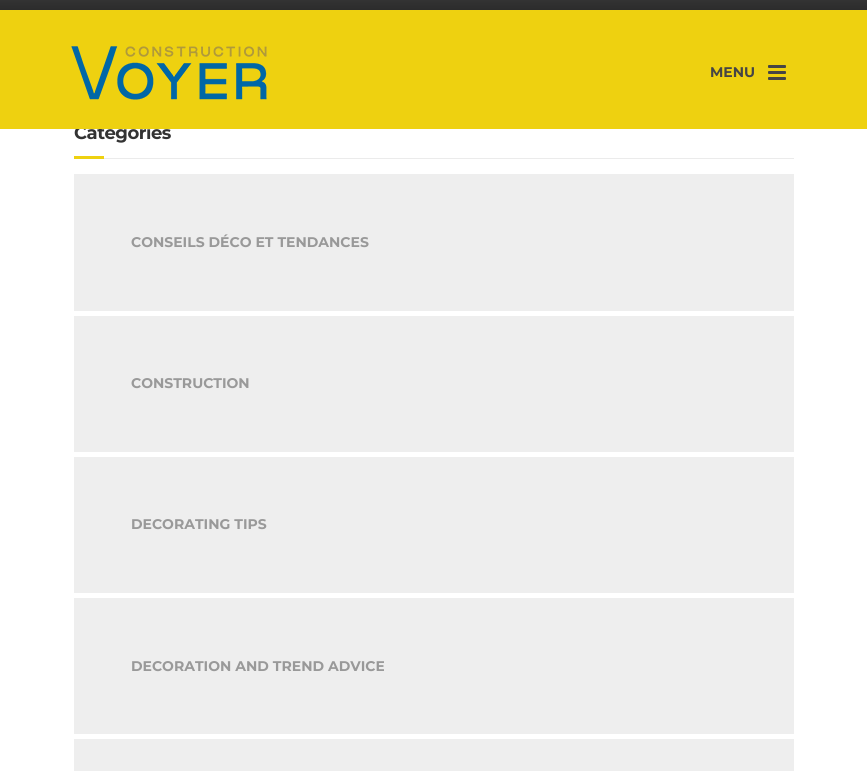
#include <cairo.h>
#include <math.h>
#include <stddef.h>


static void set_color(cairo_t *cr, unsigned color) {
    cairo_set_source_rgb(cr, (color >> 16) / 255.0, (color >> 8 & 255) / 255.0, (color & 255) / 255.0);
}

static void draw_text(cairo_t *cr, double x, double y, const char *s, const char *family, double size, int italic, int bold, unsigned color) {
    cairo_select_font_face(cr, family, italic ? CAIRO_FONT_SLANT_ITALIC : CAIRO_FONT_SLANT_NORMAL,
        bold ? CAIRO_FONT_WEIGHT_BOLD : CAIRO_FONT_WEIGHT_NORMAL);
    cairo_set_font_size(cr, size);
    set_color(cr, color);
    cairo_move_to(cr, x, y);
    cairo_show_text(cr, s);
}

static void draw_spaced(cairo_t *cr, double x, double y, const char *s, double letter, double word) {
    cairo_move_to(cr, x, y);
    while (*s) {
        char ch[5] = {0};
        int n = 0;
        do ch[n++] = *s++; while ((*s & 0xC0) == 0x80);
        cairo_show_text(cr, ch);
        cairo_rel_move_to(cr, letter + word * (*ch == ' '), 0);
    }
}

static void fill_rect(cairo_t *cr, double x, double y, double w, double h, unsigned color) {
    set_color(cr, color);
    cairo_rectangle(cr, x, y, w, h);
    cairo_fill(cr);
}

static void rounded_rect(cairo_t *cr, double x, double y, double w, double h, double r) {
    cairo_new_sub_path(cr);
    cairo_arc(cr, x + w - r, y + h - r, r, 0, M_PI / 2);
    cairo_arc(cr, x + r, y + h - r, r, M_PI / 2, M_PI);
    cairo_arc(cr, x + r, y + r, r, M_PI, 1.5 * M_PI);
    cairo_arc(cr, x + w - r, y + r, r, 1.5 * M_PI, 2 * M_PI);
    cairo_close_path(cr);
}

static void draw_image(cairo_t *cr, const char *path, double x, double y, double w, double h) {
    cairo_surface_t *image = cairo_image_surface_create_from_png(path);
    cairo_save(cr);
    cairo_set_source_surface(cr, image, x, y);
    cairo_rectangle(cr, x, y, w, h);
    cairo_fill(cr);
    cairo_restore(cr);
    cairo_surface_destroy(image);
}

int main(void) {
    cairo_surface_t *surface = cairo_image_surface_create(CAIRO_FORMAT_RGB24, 867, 771);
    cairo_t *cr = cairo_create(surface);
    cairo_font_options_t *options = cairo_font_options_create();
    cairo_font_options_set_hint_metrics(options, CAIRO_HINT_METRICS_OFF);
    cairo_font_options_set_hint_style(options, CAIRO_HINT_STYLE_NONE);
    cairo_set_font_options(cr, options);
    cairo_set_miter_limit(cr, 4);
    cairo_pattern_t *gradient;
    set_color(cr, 0xFFFFFF);
    cairo_paint(cr);
    gradient = cairo_pattern_create_linear(434, 0, 434, 11);
    cairo_pattern_add_color_stop_rgba(gradient, 0, 0.2, 0.2, 0.2, 1);
    cairo_pattern_add_color_stop_rgba(gradient, 1, 0.169, 0.169, 0.169, 1);
    cairo_set_source(cr, gradient);
    cairo_pattern_destroy(gradient);
    cairo_rectangle(cr, 0, 0, 867, 10);
    cairo_fill(cr);
    cairo_select_font_face(cr, "Montserrat", CAIRO_FONT_SLANT_NORMAL, CAIRO_FONT_WEIGHT_BOLD);
    cairo_set_font_size(cr, 18);
    set_color(cr, 0x333333);
    draw_spaced(cr, 74, 139, "Categories", -0.5, 0);
    fill_rect(cr, 0, 10, 867, 119, 0xEED110);
    draw_image(cr, "assets/img1.png", 71, 46, 196, 54);
    draw_text(cr, 710, 77, "MENU", "Montserrat", 14, 0, 1, 0x454545);
    rounded_rect(cr, 768, 65, 18, 3, 1);
    cairo_fill(cr);
    rounded_rect(cr, 768, 71, 18, 3, 1);
    cairo_fill(cr);
    rounded_rect(cr, 768, 77, 18, 3, 1);
    cairo_fill(cr);
    fill_rect(cr, 104, 158, 690, 1, 0xEBEBEB);
    fill_rect(cr, 74, 156, 30, 3, 0xEED110);
    fill_rect(cr, 74, 174, 720, 137, 0xEEEEEE);
    draw_text(cr, 131, 247, "CONSEILS DÉCO ET TENDANCES", "Montserrat", 14, 0, 1, 0x999999);
    fill_rect(cr, 74, 316, 720, 136, 0xEEEEEE);
    draw_text(cr, 131, 388, "CONSTRUCTION", "Montserrat", 14, 0, 1, 0x999999);
    fill_rect(cr, 74, 457, 720, 136, 0xEEEEEE);
    draw_text(cr, 131, 529, "DECORATING TIPS", "Montserrat", 14, 0, 1, 0x999999);
    fill_rect(cr, 74, 598, 720, 136, 0xEEEEEE);
    draw_text(cr, 131, 671, "DECORATION AND TREND ADVICE", "Montserrat", 14, 0, 1, 0x999999);
    fill_rect(cr, 74, 739, 720, 32, 0xEEEEEE);
    cairo_surface_write_to_png(surface, "output.png");
    cairo_font_options_destroy(options);
    cairo_destroy(cr);
    cairo_surface_destroy(surface);
    return 0;
}
